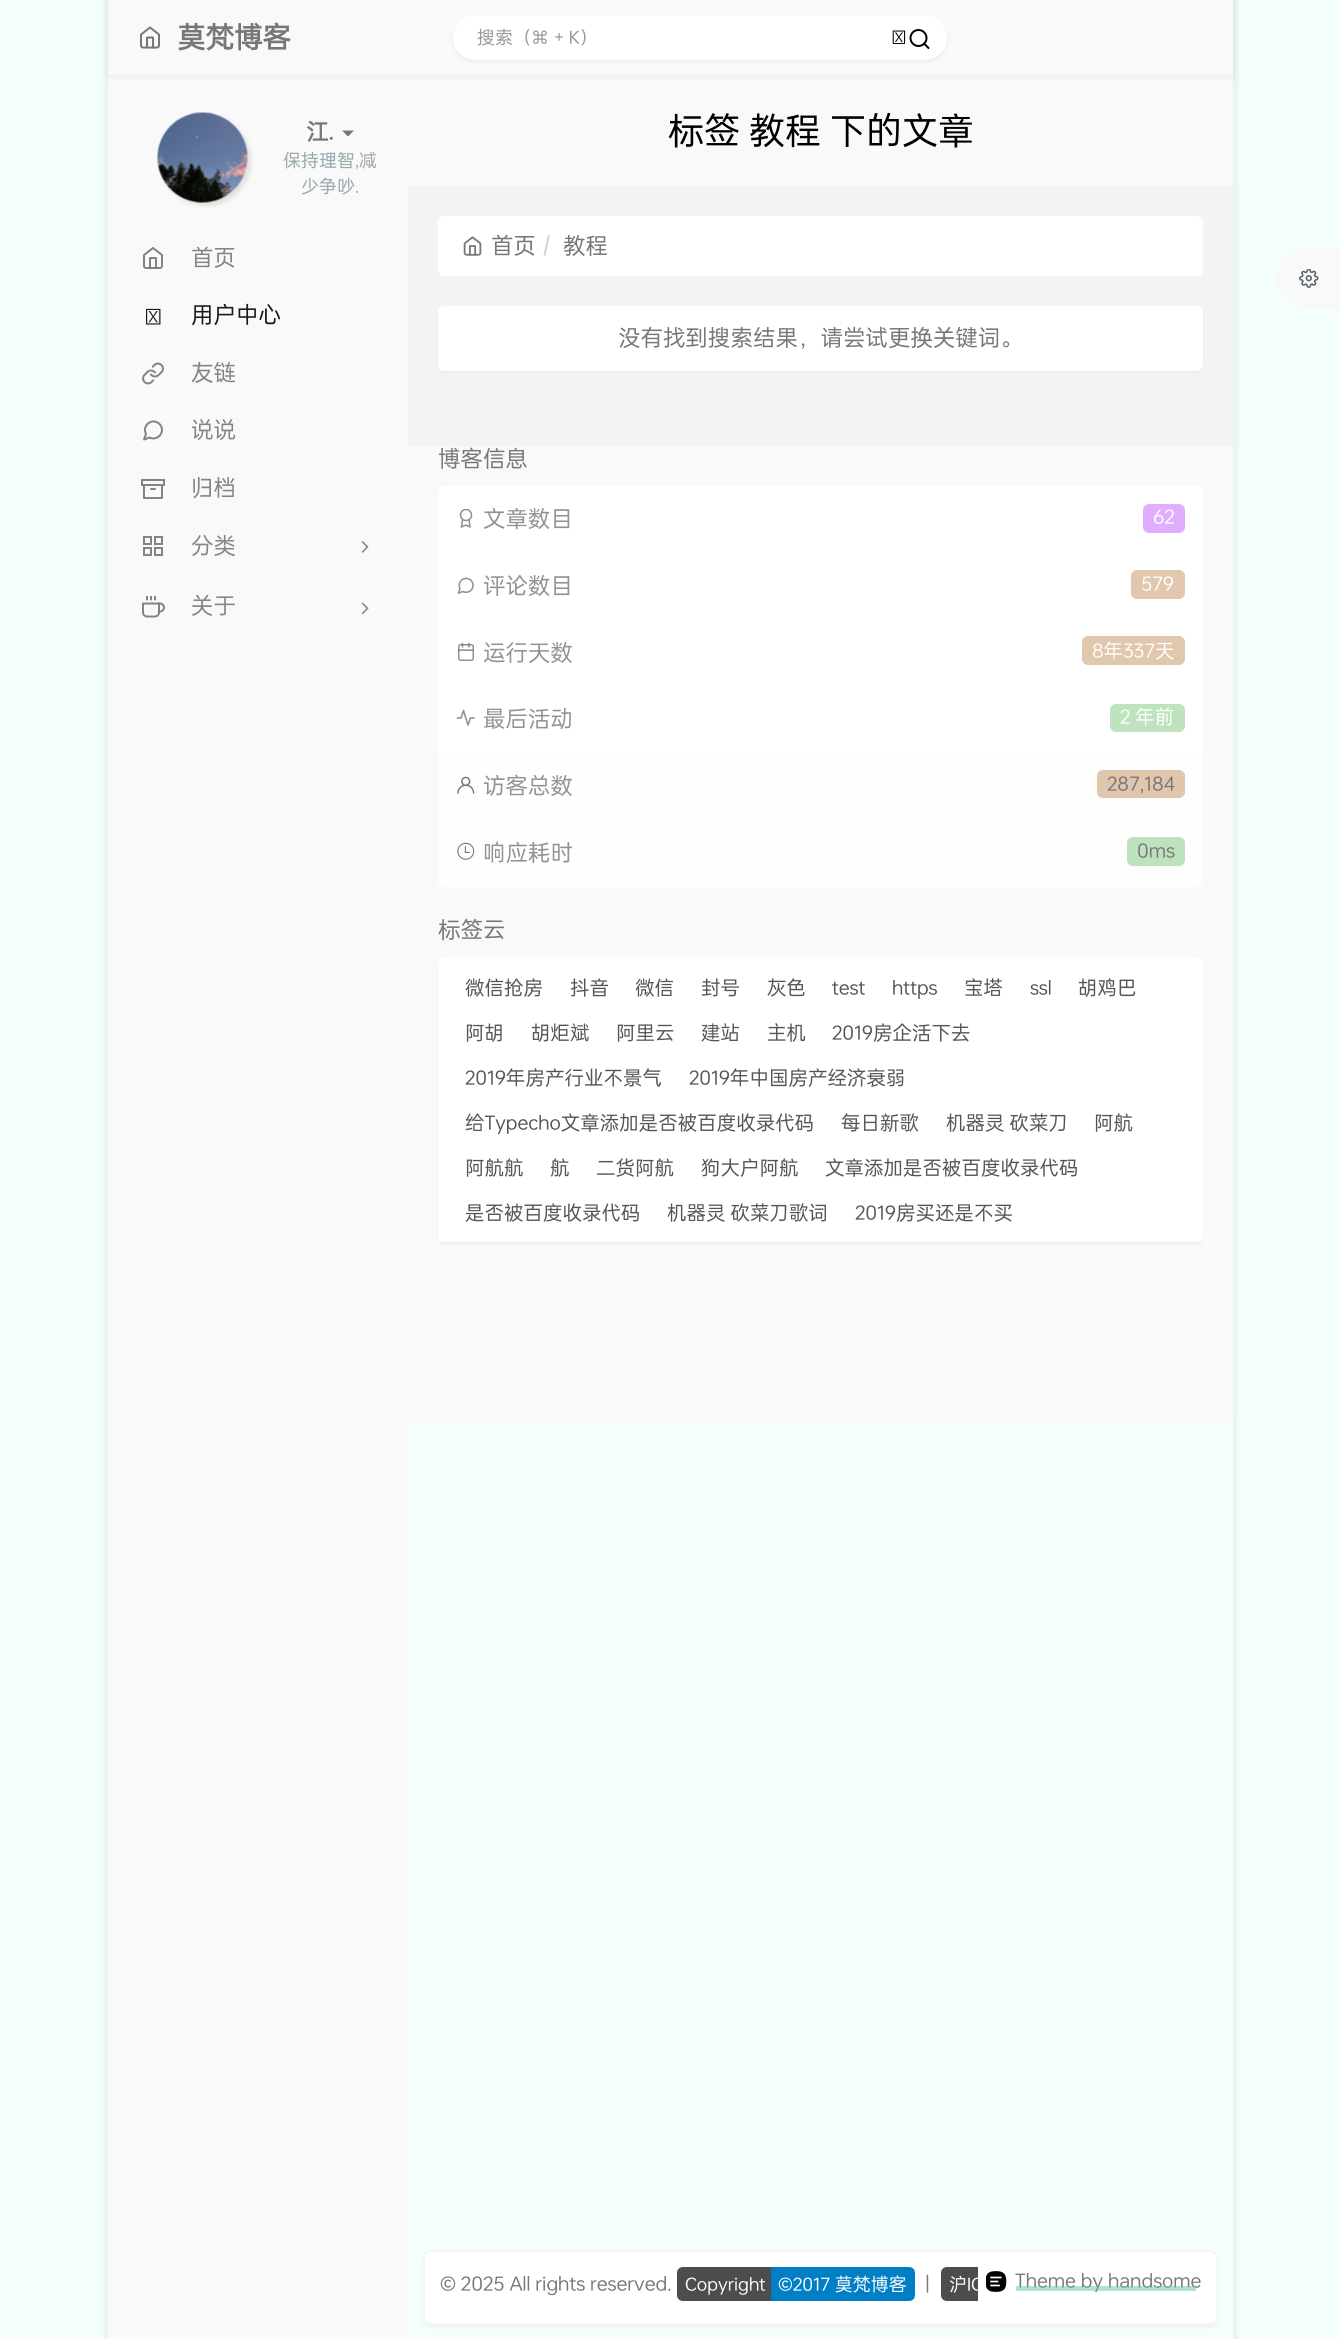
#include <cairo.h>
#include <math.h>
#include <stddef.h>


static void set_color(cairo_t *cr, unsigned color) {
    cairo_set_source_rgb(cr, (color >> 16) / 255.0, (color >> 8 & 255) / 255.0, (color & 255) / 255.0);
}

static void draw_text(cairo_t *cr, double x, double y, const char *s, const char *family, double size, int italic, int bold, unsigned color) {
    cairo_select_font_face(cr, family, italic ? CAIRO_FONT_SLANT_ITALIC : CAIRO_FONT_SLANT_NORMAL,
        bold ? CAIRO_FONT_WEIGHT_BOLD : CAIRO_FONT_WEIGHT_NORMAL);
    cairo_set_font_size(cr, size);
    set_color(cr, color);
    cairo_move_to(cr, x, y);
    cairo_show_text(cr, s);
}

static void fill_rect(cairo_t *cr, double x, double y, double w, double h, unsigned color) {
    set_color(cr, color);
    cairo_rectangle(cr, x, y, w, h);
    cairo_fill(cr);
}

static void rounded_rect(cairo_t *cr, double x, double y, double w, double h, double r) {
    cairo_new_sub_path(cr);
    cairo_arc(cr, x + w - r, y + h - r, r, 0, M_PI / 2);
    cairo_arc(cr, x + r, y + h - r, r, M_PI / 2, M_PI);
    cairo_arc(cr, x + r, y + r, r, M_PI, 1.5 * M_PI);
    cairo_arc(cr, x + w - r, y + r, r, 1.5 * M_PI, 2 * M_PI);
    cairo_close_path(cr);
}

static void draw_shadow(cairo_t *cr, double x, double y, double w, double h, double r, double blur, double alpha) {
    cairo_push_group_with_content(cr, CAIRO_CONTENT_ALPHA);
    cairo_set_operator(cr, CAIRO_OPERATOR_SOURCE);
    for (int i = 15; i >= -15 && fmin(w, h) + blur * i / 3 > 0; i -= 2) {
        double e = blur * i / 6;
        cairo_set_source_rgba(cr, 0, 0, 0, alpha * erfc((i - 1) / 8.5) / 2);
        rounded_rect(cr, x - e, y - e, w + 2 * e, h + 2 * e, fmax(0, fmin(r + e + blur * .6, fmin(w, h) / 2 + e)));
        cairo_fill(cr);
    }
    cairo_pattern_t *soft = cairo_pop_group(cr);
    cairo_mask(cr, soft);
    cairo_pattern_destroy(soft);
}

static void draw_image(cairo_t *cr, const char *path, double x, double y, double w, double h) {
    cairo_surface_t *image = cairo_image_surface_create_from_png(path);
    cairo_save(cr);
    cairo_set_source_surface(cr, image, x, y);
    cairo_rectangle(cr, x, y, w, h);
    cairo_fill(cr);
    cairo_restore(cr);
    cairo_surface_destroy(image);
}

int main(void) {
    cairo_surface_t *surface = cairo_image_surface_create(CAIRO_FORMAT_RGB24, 1340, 2339);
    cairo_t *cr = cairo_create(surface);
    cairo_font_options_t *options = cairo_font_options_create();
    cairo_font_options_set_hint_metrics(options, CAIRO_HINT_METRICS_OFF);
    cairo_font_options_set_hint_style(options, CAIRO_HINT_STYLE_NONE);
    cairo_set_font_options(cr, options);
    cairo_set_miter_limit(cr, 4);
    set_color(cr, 0xF5FFFA);
    cairo_paint(cr);
    cairo_save(cr);
    cairo_set_fill_rule(cr, CAIRO_FILL_RULE_EVEN_ODD);
    cairo_new_path(cr);
    cairo_move_to(cr, 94, 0);
    cairo_line_to(cr, 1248, 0);
    cairo_line_to(cr, 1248, 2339);
    cairo_line_to(cr, 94, 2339);
    cairo_close_path(cr);
    cairo_move_to(cr, 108, 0);
    cairo_line_to(cr, 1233, 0);
    cairo_line_to(cr, 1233, 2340);
    cairo_line_to(cr, 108, 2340);
    cairo_close_path(cr);
    cairo_clip(cr);
    set_color(cr, 0x000000);
    draw_shadow(cr, 104, -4, 1134, 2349, 0, 3, 0.05);
    cairo_restore(cr);
    fill_rect(cr, 108, 75, 300, 2264, 0xF9F9F9);
    fill_rect(cr, 408, 75, 825, 111, 0xF9F9F9);
    set_color(cr, 0x000000);
    draw_shadow(cr, 107, 0, 1128, 78, 0, 3, 0.05);
    fill_rect(cr, 108, 0, 1125, 75, 0xF9F9F9);
    draw_image(cr, "assets/img1.png", 140, 26, 20, 23);
    draw_text(cr, 177, 48, "莫梵博客", "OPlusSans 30", 28.5, 0, 1, 0x777777);
    set_color(cr, 0x000000);
    draw_shadow(cr, 453, 17, 494, 45, 22.5, 2, 0.05);
    set_color(cr, 0xFFFFFF);
    rounded_rect(cr, 453, 15, 494, 45, 22.5);
    cairo_fill(cr);
    draw_text(cr, 477, 44, "搜索（", "OPlusSans 30", 18, 0, 0, 0x999999);
    draw_text(cr, 531, 44, "⌘", "DejaVu Sans", 18, 0, 0, 0x999999);
    draw_text(cr, 554, 44, "+ K）", "OPlusSans 30", 18, 0, 0, 0x999999);
    draw_image(cr, "assets/img2.png", 892, 30, 14, 14);
    cairo_arc(cr, 918.5, 38, 8, 0, 2 * M_PI);
    set_color(cr, 0x000000);
    cairo_stroke(cr);
    cairo_new_path(cr);
    cairo_move_to(cr, 928.5, 48);
    cairo_line_to(cr, 924, 43.5);
    cairo_set_line_cap(cr, CAIRO_LINE_CAP_ROUND);
    cairo_set_line_join(cr, CAIRO_LINE_JOIN_ROUND);
    cairo_stroke(cr);
    set_color(cr, 0xE1E1E1);
    draw_shadow(cr, 161, 116, 90, 90, 45, 2, 1);
    draw_image(cr, "assets/img3.png", 157, 112, 91, 91);
    draw_text(cr, 306, 140, "江.", "OPlusSans 30", 22.5, 0, 1, 0x777777);
    cairo_new_path(cr);
    cairo_move_to(cr, 342, 130.5);
    cairo_line_to(cr, 354, 130.5);
    cairo_line_to(cr, 348, 136.5);
    cairo_close_path(cr);
    cairo_fill(cr);
    draw_text(cr, 283, 167, "保持理智,减", "OPlusSans 30", 18, 0, 0, 0x98A6AD);
    draw_text(cr, 301, 193, "少争吵.", "OPlusSans 30", 18, 0, 0, 0x98A6AD);
    draw_image(cr, "assets/img4.png", 143, 247, 20, 22);
    draw_text(cr, 191, 266, "首页", "OPlusSans 30", 22.5, 0, 0, 0x848484);
    draw_image(cr, "assets/img5.png", 146, 308, 15, 17);
    draw_text(cr, 191, 323, "用户中心", "OPlusSans 30", 22.5, 0, 0, 0x191919);
    draw_image(cr, "assets/img6.png", 142, 362, 22, 23);
    draw_text(cr, 191, 381, "友链", "OPlusSans 30", 22.5, 0, 0, 0x848484);
    cairo_new_path(cr);
    cairo_move_to(cr, 162, 430);
    cairo_curve_to(cr, 162, 436, 155, 440.5, 149.5, 437.5);
    cairo_line_to(cr, 144, 439.5);
    cairo_line_to(cr, 146, 434);
    cairo_curve_to(cr, 141.5, 425.5, 152.5, 417, 159.5, 424);
    cairo_curve_to(cr, 161, 425.5, 162, 427.5, 162, 430);
    cairo_close_path(cr);
    cairo_stroke(cr);
    draw_text(cr, 191, 438, "说说", "OPlusSans 30", 22.5, 0, 0, 0x848484);
    cairo_new_path(cr);
    cairo_move_to(cr, 162, 485);
    cairo_line_to(cr, 162, 498);
    cairo_line_to(cr, 144, 498);
    cairo_line_to(cr, 144, 485);
    cairo_stroke(cr);
    cairo_rectangle(cr, 142, 480, 22, 5);
    cairo_set_line_cap(cr, CAIRO_LINE_CAP_BUTT);
    cairo_set_line_join(cr, CAIRO_LINE_JOIN_MITER);
    cairo_stroke(cr);
    cairo_new_path(cr);
    cairo_move_to(cr, 151, 489);
    cairo_line_to(cr, 155, 489);
    cairo_set_line_cap(cr, CAIRO_LINE_CAP_ROUND);
    cairo_set_line_join(cr, CAIRO_LINE_JOIN_ROUND);
    cairo_stroke(cr);
    draw_text(cr, 191, 496, "归档", "OPlusSans 30", 22.5, 0, 0, 0x848484);
    cairo_rectangle(cr, 144, 537, 7, 7);
    cairo_set_line_cap(cr, CAIRO_LINE_CAP_BUTT);
    cairo_set_line_join(cr, CAIRO_LINE_JOIN_MITER);
    cairo_stroke(cr);
    cairo_rectangle(cr, 155, 537, 7, 7);
    cairo_stroke(cr);
    cairo_rectangle(cr, 144, 548, 7, 7);
    cairo_stroke(cr);
    cairo_rectangle(cr, 155, 548, 7, 7);
    cairo_stroke(cr);
    draw_text(cr, 191, 554, "分类", "OPlusSans 30", 22.5, 0, 0, 0x848484);
    draw_image(cr, "assets/img7.png", 361, 541, 8, 12);
    draw_image(cr, "assets/img8.png", 142, 596, 23, 22);
    draw_text(cr, 191, 614, "关于", "OPlusSans 30", 22.5, 0, 0, 0x848484);
    draw_image(cr, "assets/img9.png", 361, 602, 8, 13);
    fill_rect(cr, 408, 186, 825, 260, 0xF1F3F4);
    draw_text(cr, 668, 144, "标签 教程 下的文章", "OPlusSans 30", 36, 0, 0, 0x000000);
    set_color(cr, 0xFFFFFF);
    rounded_rect(cr, 438, 216, 765, 60, 6);
    cairo_fill(cr);
    draw_image(cr, "assets/img10.png", 463, 236, 19, 20);
    draw_text(cr, 491, 254, "首页", "OPlusSans 30", 22.5, 0, 0, 0x777777);
    draw_text(cr, 543, 254, "/", "OPlusSans 30", 22.5, 0, 0, 0xCCCCCC);
    draw_text(cr, 563, 254, "教程", "OPlusSans 30", 22.5, 0, 0, 0x777777);
    set_color(cr, 0x000000);
    draw_shadow(cr, 438, 308, 765, 64, 6, 1, 0.05);
    set_color(cr, 0xFFFFFF);
    rounded_rect(cr, 438, 306, 765, 65, 6);
    cairo_fill(cr);
    draw_text(cr, 618, 346, "没有找到搜索结果，请尝试更换关键词。", "OPlusSans 30", 22.5, 0, 0, 0x777777);
    fill_rect(cr, 408, 446, 825, 976, 0xF9F9F9);
    fill_rect(cr, 438, 753, 765, 68, 0xFEFEFE);
    draw_text(cr, 438, 467, "博客信息", "OPlusSans 30", 22.5, 0, 0, 0x777777);
    set_color(cr, 0xFFFFFF);
    cairo_new_path(cr);
    cairo_move_to(cr, 444, 486);
    cairo_line_to(cr, 1197, 486);
    cairo_curve_to(cr, 1200.5, 486, 1203, 488.5, 1203, 492);
    cairo_line_to(cr, 1203, 554);
    cairo_line_to(cr, 438, 554);
    cairo_line_to(cr, 438, 492);
    cairo_curve_to(cr, 438, 488.5, 440.5, 486, 444, 486);
    cairo_close_path(cr);
    cairo_fill(cr);
    cairo_save(cr);
    cairo_rectangle(cr, 456, 509, 20, 19);
    cairo_clip(cr);
    cairo_arc(cr, 466, 515, 5.5, 0, 2 * M_PI);
    set_color(cr, 0x929292);
    cairo_set_line_width(cr, 1.6);
    cairo_stroke(cr);
    cairo_restore(cr);
    cairo_new_path(cr);
    cairo_move_to(cr, 462.5, 520);
    cairo_line_to(cr, 461.5, 527);
    cairo_line_to(cr, 466, 525);
    cairo_line_to(cr, 470, 527);
    cairo_line_to(cr, 469, 520);
    set_color(cr, 0x929292);
    cairo_set_line_width(cr, 1.6);
    cairo_set_line_cap(cr, CAIRO_LINE_CAP_ROUND);
    cairo_set_line_join(cr, CAIRO_LINE_JOIN_ROUND);
    cairo_stroke(cr);
    draw_text(cr, 483, 527, "文章数目", "OPlusSans 30", 22.5, 0, 0, 0x929292);
    set_color(cr, 0xE1ADFF);
    rounded_rect(cr, 1143, 504, 42, 29, 6);
    cairo_fill(cr);
    draw_text(cr, 1153, 524, "62", "OPlusSans 30", 19.5, 0, 0, 0xFFFFFF);
    fill_rect(cr, 438, 554, 765, 199, 0xFFFFFF);
    draw_image(cr, "assets/img11.png", 457, 577, 17, 17);
    draw_text(cr, 483, 594, "评论数目", "OPlusSans 30", 22.5, 0, 0, 0x929292);
    set_color(cr, 0xE1C7AD);
    rounded_rect(cr, 1131, 570, 54, 29, 6);
    cairo_fill(cr);
    draw_text(cr, 1141, 591, "579", "OPlusSans 30", 19.5, 0, 0, 0xFFFFFF);
    draw_image(cr, "assets/img12.png", 457, 642, 17, 19);
    draw_text(cr, 483, 661, "运行天数", "OPlusSans 30", 22.5, 0, 0, 0x929292);
    set_color(cr, 0xE1C7AD);
    rounded_rect(cr, 1082, 636, 103, 29, 6);
    cairo_fill(cr);
    draw_text(cr, 1092, 658, "8年337天", "OPlusSans 30", 19.5, 0, 0, 0xFFFFFF);
    cairo_new_path(cr);
    cairo_move_to(cr, 474, 718);
    cairo_line_to(cr, 470.5, 718);
    cairo_line_to(cr, 468, 725);
    cairo_line_to(cr, 463.5, 710.5);
    cairo_line_to(cr, 461, 718);
    cairo_line_to(cr, 457.5, 718);
    set_color(cr, 0x929292);
    cairo_stroke(cr);
    draw_text(cr, 483, 727, "最后活动", "OPlusSans 30", 22.5, 0, 0, 0x929292);
    set_color(cr, 0xBEE3BE);
    rounded_rect(cr, 1110, 704, 75, 28, 6);
    cairo_fill(cr);
    draw_text(cr, 1120, 724, "2 年前", "OPlusSans 30", 19.5, 0, 0, 0xFFFFFF);
    draw_image(cr, "assets/img13.png", 457, 776, 18, 18);
    draw_text(cr, 483, 794, "访客总数", "OPlusSans 30", 22.5, 0, 0, 0x929292);
    set_color(cr, 0xDFC6AC);
    rounded_rect(cr, 1097, 770, 88, 28, 6);
    cairo_fill(cr);
    draw_text(cr, 1107, 791, "287,184", "OPlusSans 30", 19.5, 0, 0, 0x777777);
    cairo_set_source_rgba(cr, 1, 1, 1, 0.8);
    cairo_new_path(cr);
    cairo_move_to(cr, 438, 819);
    cairo_line_to(cr, 1203, 819);
    cairo_line_to(cr, 1203, 881);
    cairo_curve_to(cr, 1203, 884.5, 1200.5, 887, 1197, 887);
    cairo_line_to(cr, 444, 887);
    cairo_curve_to(cr, 440.5, 887, 438, 884.5, 438, 881);
    cairo_close_path(cr);
    cairo_fill(cr);
    draw_image(cr, "assets/img14.png", 457, 842, 18, 18);
    draw_text(cr, 483, 861, "响应耗时", "OPlusSans 30", 22.5, 0, 0, 0x929292);
    set_color(cr, 0xBDE2BD);
    rounded_rect(cr, 1127, 837, 58, 29, 6);
    cairo_fill(cr);
    draw_text(cr, 1137, 858, "0ms", "OPlusSans 30", 19.5, 0, 0, 0x777777);
    draw_text(cr, 438, 938, "标签云", "OPlusSans 30", 22.5, 0, 0, 0x777777);
    set_color(cr, 0x000000);
    draw_shadow(cr, 438, 959, 765, 285, 6, 1, 0.05);
    set_color(cr, 0xFFFFFF);
    rounded_rect(cr, 438, 957, 765, 285, 6);
    cairo_fill(cr);
    draw_text(cr, 465, 995, "微信抢房", "OPlusSans 30", 19.5, 0, 0, 0x555555);
    draw_text(cr, 570, 995, "抖音", "OPlusSans 30", 19.5, 0, 0, 0x555555);
    draw_text(cr, 635, 995, "微信", "OPlusSans 30", 19.5, 0, 0, 0x555555);
    draw_text(cr, 701, 995, "封号", "OPlusSans 30", 19.5, 0, 0, 0x555555);
    draw_text(cr, 767, 995, "灰色", "OPlusSans 30", 19.5, 0, 0, 0x555555);
    draw_text(cr, 832, 995, "test", "OPlusSans 30", 19.5, 0, 0, 0x555555);
    draw_text(cr, 892, 995, "https", "OPlusSans 30", 19.5, 0, 0, 0x555555);
    draw_text(cr, 964, 995, "宝塔", "OPlusSans 30", 19.5, 0, 0, 0x555555);
    draw_text(cr, 1030, 995, "ssl", "OPlusSans 30", 19.5, 0, 0, 0x555555);
    draw_text(cr, 1078, 995, "胡鸡巴", "OPlusSans 30", 19.5, 0, 0, 0x555555);
    draw_text(cr, 465, 1040, "阿胡", "OPlusSans 30", 19.5, 0, 0, 0x555555);
    draw_text(cr, 531, 1040, "胡炬斌", "OPlusSans 30", 19.5, 0, 0, 0x555555);
    draw_text(cr, 616, 1040, "阿里云", "OPlusSans 30", 19.5, 0, 0, 0x555555);
    draw_text(cr, 701, 1040, "建站", "OPlusSans 30", 19.5, 0, 0, 0x555555);
    draw_text(cr, 767, 1040, "主机", "OPlusSans 30", 19.5, 0, 0, 0x555555);
    draw_text(cr, 832, 1040, "2019房企活下去", "OPlusSans 30", 19.5, 0, 0, 0x555555);
    draw_text(cr, 465, 1085, "2019年房产行业不景气", "OPlusSans 30", 19.5, 0, 0, 0x555555);
    draw_text(cr, 689, 1085, "2019年中国房产经济衰弱", "OPlusSans 30", 19.5, 0, 0, 0x555555);
    draw_text(cr, 465, 1130, "给Typecho文章添加是否被百度收录代码", "OPlusSans 30", 19.5, 0, 0, 0x555555);
    draw_text(cr, 841, 1130, "每日新歌", "OPlusSans 30", 19.5, 0, 0, 0x555555);
    draw_text(cr, 946, 1130, "机器灵 砍菜刀", "OPlusSans 30", 19.5, 0, 0, 0x555555);
    draw_text(cr, 1094, 1130, "阿航", "OPlusSans 30", 19.5, 0, 0, 0x555555);
    draw_text(cr, 465, 1175, "阿航航", "OPlusSans 30", 19.5, 0, 0, 0x555555);
    draw_text(cr, 550, 1175, "航", "OPlusSans 30", 19.5, 0, 0, 0x555555);
    draw_text(cr, 596, 1175, "二货阿航", "OPlusSans 30", 19.5, 0, 0, 0x555555);
    draw_text(cr, 701, 1175, "狗大户阿航", "OPlusSans 30", 19.5, 0, 0, 0x555555);
    draw_text(cr, 825, 1175, "文章添加是否被百度收录代码", "OPlusSans 30", 19.5, 0, 0, 0x555555);
    draw_text(cr, 465, 1220, "是否被百度收录代码", "OPlusSans 30", 19.5, 0, 0, 0x555555);
    draw_text(cr, 667, 1220, "机器灵 砍菜刀歌词", "OPlusSans 30", 19.5, 0, 0, 0x555555);
    draw_text(cr, 855, 1220, "2019房买还是不买", "OPlusSans 30", 19.5, 0, 0, 0x555555);
    set_color(cr, 0x000000);
    draw_shadow(cr, 423, 2252, 795, 75, 8, 2, 0.05);
    set_color(cr, 0xFFFFFF);
    rounded_rect(cr, 424, 2251, 793, 73, 7);
    cairo_fill_preserve(cr);
    set_color(cr, 0xF6F6F6);
    cairo_set_line_width(cr, 2);
    cairo_set_line_cap(cr, CAIRO_LINE_CAP_BUTT);
    cairo_set_line_join(cr, CAIRO_LINE_JOIN_MITER);
    cairo_stroke(cr);
    draw_text(cr, 440, 2291, "© 2025 All rights reserved.", "OPlusSans 30", 19.5, 0, 0, 0x777777);
    set_color(cr, 0x4D4D4D);
    cairo_new_path(cr);
    cairo_move_to(cr, 683, 2267);
    cairo_line_to(cr, 771, 2267);
    cairo_line_to(cr, 771, 2301);
    cairo_line_to(cr, 683, 2301);
    cairo_curve_to(cr, 679.5, 2301, 677, 2298.5, 677, 2295);
    cairo_line_to(cr, 677, 2273);
    cairo_curve_to(cr, 677, 2269.5, 679.5, 2267, 683, 2267);
    cairo_close_path(cr);
    cairo_fill(cr);
    draw_text(cr, 685, 2291, "Copyright", "OPlusSans 30", 18, 0, 0, 0xFFFFFF);
    set_color(cr, 0x007EC6);
    cairo_new_path(cr);
    cairo_move_to(cr, 771, 2267);
    cairo_line_to(cr, 909, 2267);
    cairo_curve_to(cr, 912.5, 2267, 915, 2269.5, 915, 2273);
    cairo_line_to(cr, 915, 2295);
    cairo_curve_to(cr, 915, 2298.5, 912.5, 2301, 909, 2301);
    cairo_line_to(cr, 771, 2301);
    cairo_close_path(cr);
    cairo_fill(cr);
    draw_text(cr, 778, 2291, "©2017 莫梵博客", "OPlusSans 30", 18, 0, 0, 0xFFFFFF);
    draw_text(cr, 925, 2291, "|", "OPlusSans 30", 19.5, 0, 0, 0x777777);
    set_color(cr, 0x4D4D4D);
    cairo_new_path(cr);
    cairo_move_to(cr, 947, 2267);
    cairo_line_to(cr, 978, 2267);
    cairo_line_to(cr, 978, 2301);
    cairo_line_to(cr, 947, 2301);
    cairo_curve_to(cr, 943.5, 2301, 941, 2298.5, 941, 2295);
    cairo_line_to(cr, 941, 2273);
    cairo_curve_to(cr, 941, 2269.5, 943.5, 2267, 947, 2267);
    cairo_close_path(cr);
    cairo_fill(cr);
    cairo_save(cr);
    cairo_rectangle(cr, 440, 2267, 538, 42);
    cairo_clip(cr);
    draw_text(cr, 949, 2291, "沪IC", "OPlusSans 30", 18, 0, 0, 0xFFFFFF);
    cairo_restore(cr);
    draw_image(cr, "assets/img15.png", 986, 2271, 21, 21);
    draw_text(cr, 1015, 2288, "Theme by handsome", "OPlusSans 30", 19.5, 0, 0, 0x777777);
    cairo_set_source_rgba(cr, 0.392, 0.788, 0.608, 0.5);
    cairo_rectangle(cr, 1016, 2286, 180, 5);
    cairo_fill(cr);
    set_color(cr, 0xF9F9F9);
    cairo_new_path(cr);
    cairo_move_to(cr, 1309, 248);
    cairo_line_to(cr, 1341, 248);
    cairo_line_to(cr, 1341, 308);
    cairo_line_to(cr, 1309, 308);
    cairo_curve_to(cr, 1291, 308, 1276, 294, 1276, 278);
    cairo_curve_to(cr, 1276, 261, 1291, 248, 1309, 248);
    cairo_close_path(cr);
    cairo_fill(cr);
    draw_image(cr, "assets/img16.png", 1299, 269, 20, 19);
    cairo_surface_write_to_png(surface, "output.png");
    cairo_font_options_destroy(options);
    cairo_destroy(cr);
    cairo_surface_destroy(surface);
    return 0;
}
